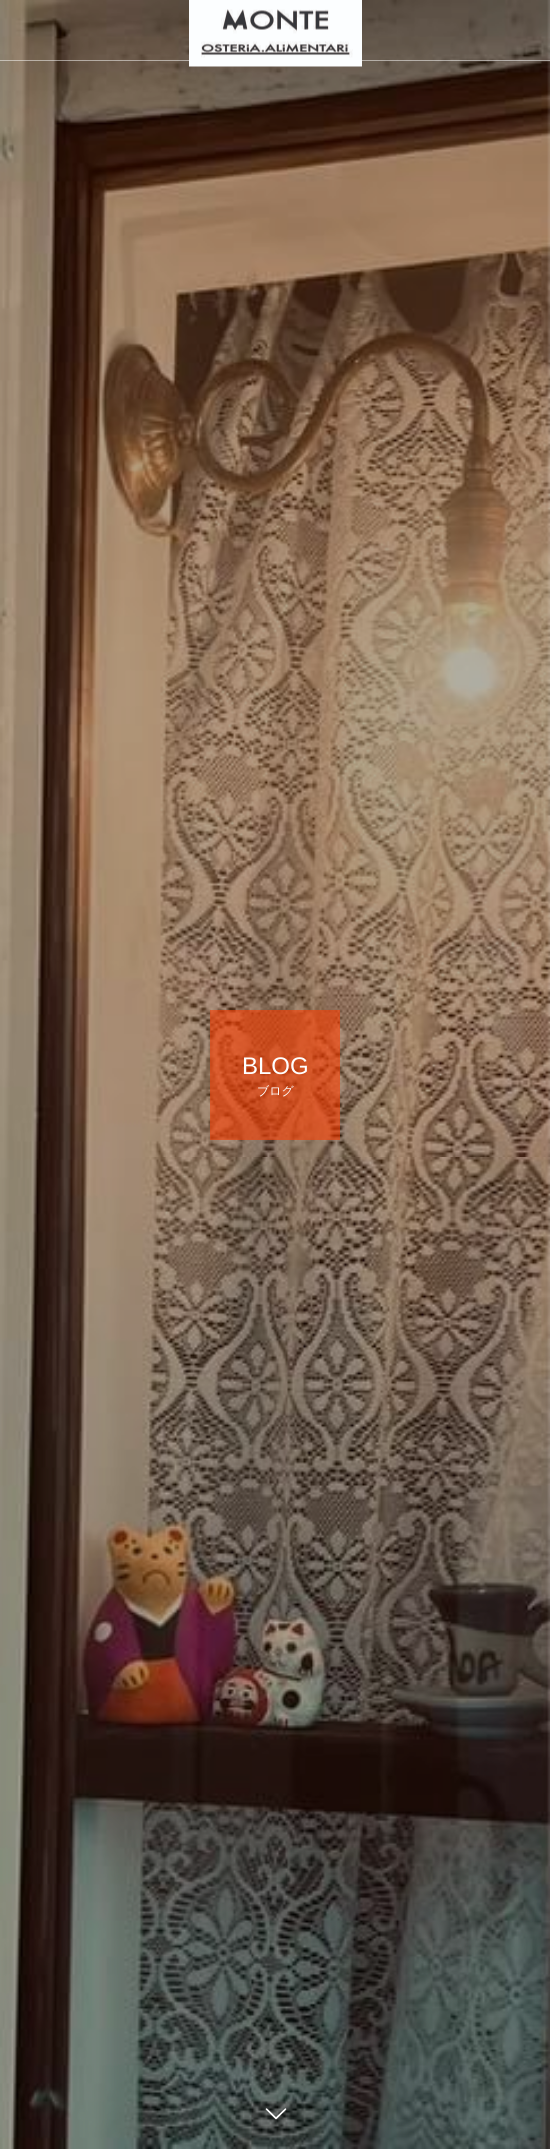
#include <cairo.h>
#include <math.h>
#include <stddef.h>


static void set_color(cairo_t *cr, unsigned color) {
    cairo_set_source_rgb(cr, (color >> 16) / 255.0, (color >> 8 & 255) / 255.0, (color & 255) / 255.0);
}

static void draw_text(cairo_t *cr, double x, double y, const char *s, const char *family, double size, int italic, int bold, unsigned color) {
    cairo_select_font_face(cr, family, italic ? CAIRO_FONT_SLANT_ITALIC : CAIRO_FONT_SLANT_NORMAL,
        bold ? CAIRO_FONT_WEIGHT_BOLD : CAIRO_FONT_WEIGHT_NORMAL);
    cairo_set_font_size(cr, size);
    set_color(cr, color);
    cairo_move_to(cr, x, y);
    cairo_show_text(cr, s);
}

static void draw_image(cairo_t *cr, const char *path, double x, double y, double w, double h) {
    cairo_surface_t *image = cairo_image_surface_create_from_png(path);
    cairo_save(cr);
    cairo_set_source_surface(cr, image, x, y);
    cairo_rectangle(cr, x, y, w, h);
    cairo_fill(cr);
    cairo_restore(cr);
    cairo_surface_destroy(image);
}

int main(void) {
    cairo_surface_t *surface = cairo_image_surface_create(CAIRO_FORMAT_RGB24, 550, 2149);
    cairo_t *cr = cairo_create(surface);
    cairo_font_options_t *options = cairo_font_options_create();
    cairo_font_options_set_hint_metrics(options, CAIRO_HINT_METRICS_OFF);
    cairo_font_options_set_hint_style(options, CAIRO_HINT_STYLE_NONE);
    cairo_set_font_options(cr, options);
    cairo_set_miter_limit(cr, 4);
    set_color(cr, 0xFFFFFF);
    cairo_paint(cr);
    draw_image(cr, "assets/img2.png", 0, 0, 550, 2149);
    cairo_set_source_rgba(cr, 1, 1, 1, 0.5);
    cairo_rectangle(cr, 0, 60, 550, 1);
    cairo_fill(cr);
    draw_image(cr, "assets/img1.png", 189, 0, 173, 67);
    cairo_set_source_rgba(cr, 1, 0.247, 0, 0.6);
    cairo_rectangle(cr, 210, 1010, 130, 130);
    cairo_fill(cr);
    draw_text(cr, 242, 1074, "BLOG", "Liberation Sans", 24, 0, 0, 0xFFFFFF);
    draw_text(cr, 257, 1095, "ブログ", "WenQuanYi Zen Hei Medium", 12, 0, 0, 0xFFFFFF);
    draw_image(cr, "assets/img3.png", 265, 2108, 22, 12);
    cairo_surface_write_to_png(surface, "output.png");
    cairo_font_options_destroy(options);
    cairo_destroy(cr);
    cairo_surface_destroy(surface);
    return 0;
}
